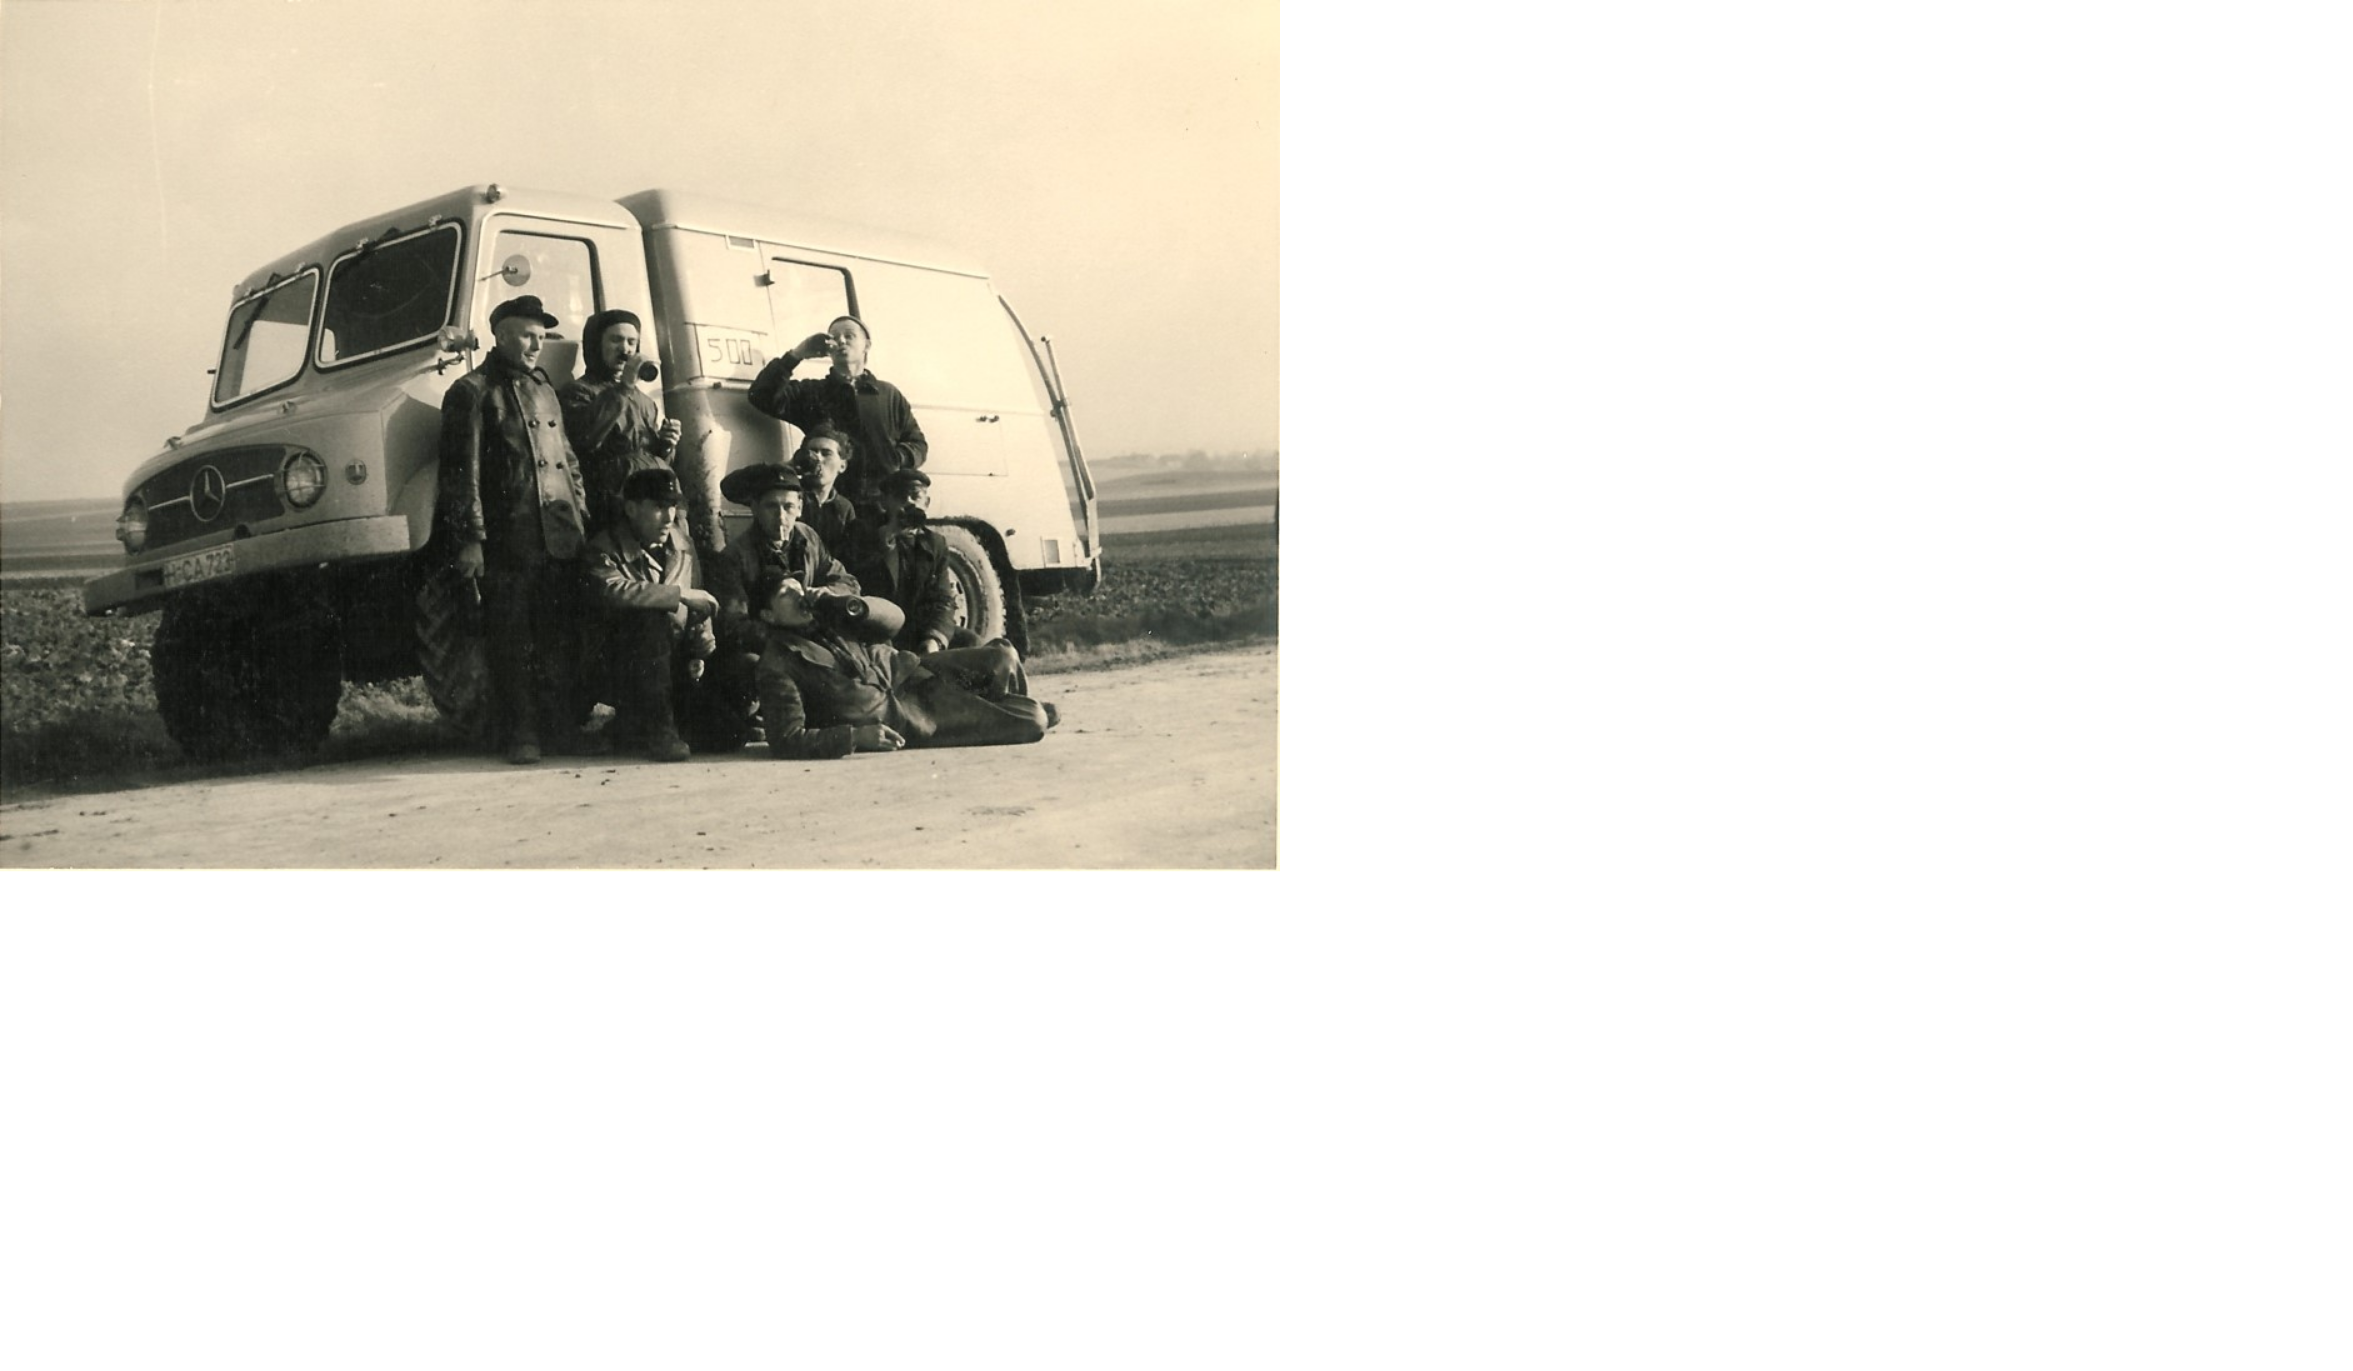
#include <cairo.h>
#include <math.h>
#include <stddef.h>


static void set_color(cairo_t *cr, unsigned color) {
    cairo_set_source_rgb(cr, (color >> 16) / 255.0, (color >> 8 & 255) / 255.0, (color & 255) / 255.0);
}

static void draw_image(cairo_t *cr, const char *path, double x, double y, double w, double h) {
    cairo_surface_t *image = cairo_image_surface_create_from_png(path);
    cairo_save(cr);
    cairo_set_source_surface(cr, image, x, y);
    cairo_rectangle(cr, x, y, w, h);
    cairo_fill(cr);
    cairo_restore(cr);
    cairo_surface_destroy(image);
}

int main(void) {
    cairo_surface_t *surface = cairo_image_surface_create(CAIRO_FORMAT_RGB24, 2353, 1371);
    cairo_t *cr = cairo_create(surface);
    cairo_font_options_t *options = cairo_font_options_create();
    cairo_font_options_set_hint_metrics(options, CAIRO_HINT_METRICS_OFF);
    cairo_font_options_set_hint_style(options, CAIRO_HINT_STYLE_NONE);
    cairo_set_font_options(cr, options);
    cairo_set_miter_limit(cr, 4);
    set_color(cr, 0xFFFFFF);
    cairo_paint(cr);
    draw_image(cr, "assets/img1.png", 0, 0, 1280, 872);
    cairo_surface_write_to_png(surface, "output.png");
    cairo_font_options_destroy(options);
    cairo_destroy(cr);
    cairo_surface_destroy(surface);
    return 0;
}
